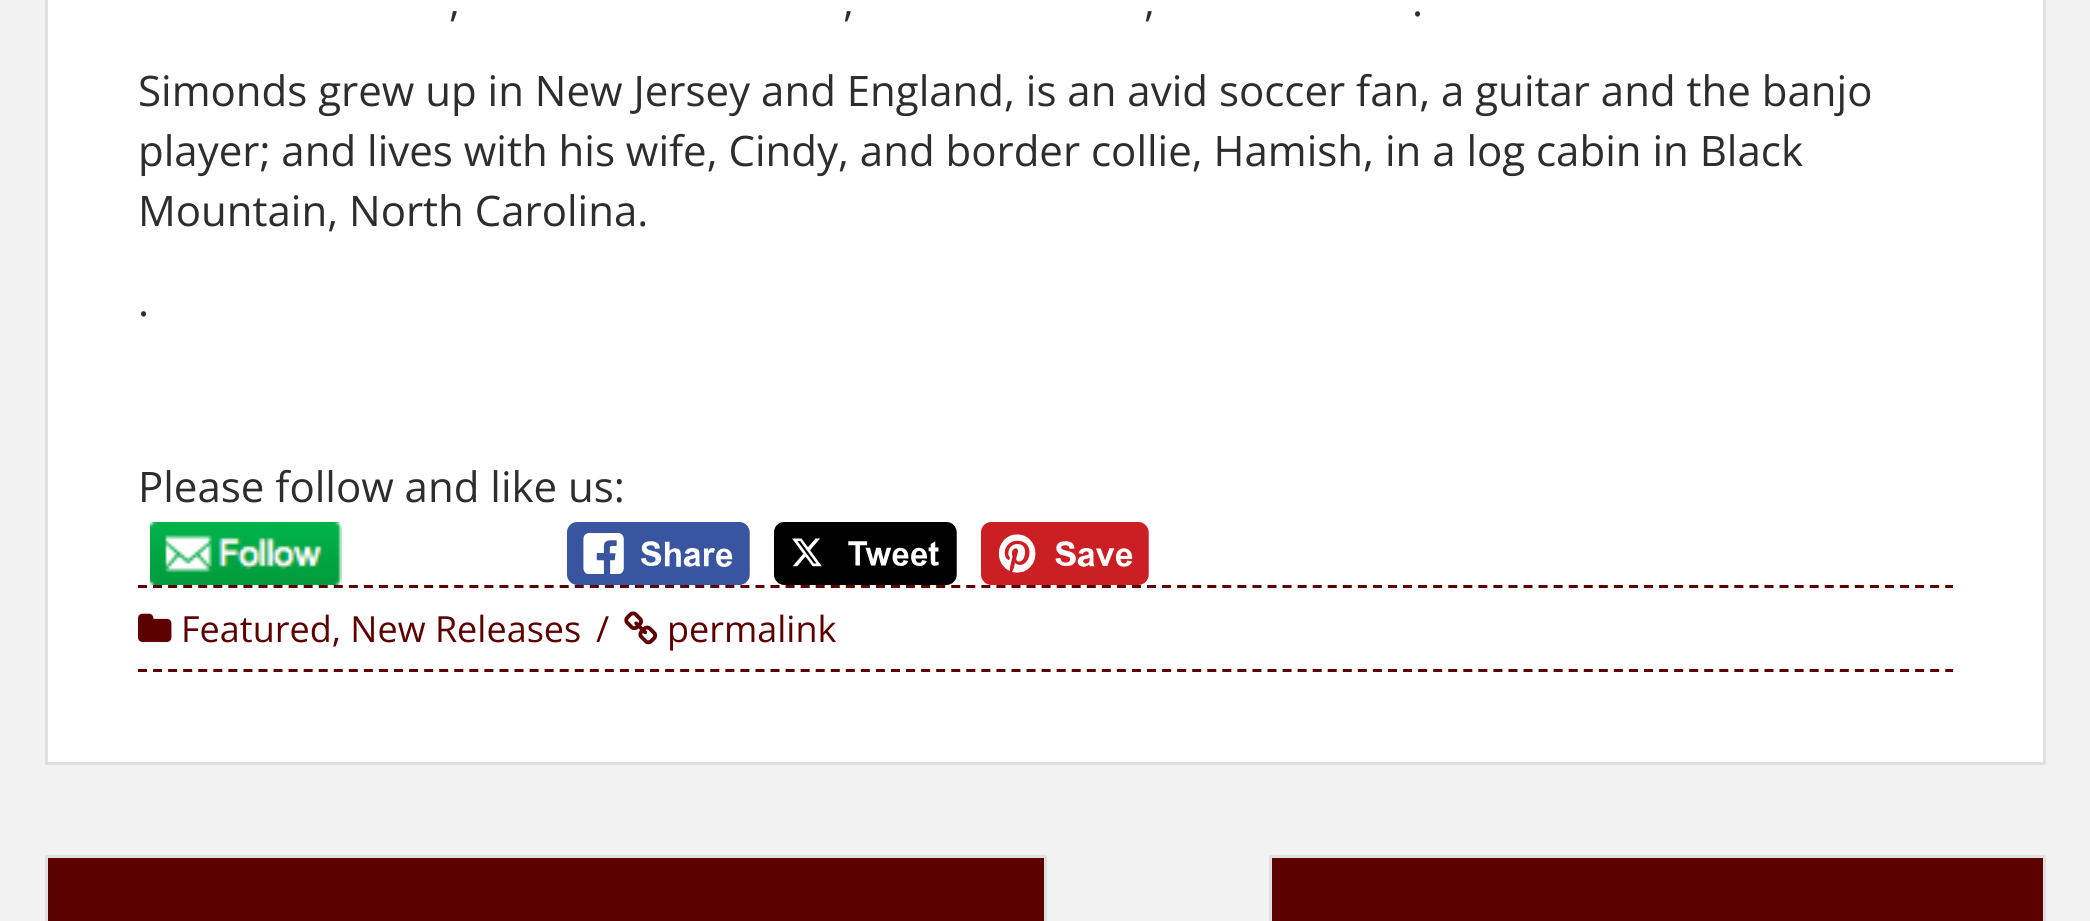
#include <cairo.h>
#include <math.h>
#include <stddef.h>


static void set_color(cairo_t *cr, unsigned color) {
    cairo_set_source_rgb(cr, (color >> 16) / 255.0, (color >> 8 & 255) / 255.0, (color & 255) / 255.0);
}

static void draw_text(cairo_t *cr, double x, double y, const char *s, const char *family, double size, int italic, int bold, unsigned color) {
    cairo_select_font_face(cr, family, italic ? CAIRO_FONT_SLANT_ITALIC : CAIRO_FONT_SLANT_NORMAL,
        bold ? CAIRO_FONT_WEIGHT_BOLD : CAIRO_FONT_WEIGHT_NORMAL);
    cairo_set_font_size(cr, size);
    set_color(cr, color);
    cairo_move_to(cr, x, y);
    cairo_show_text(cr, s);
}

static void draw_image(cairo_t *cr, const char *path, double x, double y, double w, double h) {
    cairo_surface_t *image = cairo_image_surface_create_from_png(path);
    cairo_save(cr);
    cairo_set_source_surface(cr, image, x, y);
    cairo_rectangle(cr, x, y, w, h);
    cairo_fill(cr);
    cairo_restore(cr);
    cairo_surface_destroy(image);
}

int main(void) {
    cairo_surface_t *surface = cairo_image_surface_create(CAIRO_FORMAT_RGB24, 2090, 921);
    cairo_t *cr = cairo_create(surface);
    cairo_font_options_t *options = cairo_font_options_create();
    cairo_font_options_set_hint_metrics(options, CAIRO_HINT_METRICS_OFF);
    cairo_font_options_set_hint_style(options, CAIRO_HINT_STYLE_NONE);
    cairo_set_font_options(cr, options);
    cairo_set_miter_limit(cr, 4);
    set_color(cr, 0xF2F2F2);
    cairo_paint(cr);
    set_color(cr, 0xFFFFFF);
    cairo_rectangle(cr, 46.5, -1.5, 1998, 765);
    cairo_fill_preserve(cr);
    set_color(cr, 0xE0E0E0);
    cairo_set_line_width(cr, 3);
    cairo_stroke(cr);
    draw_text(cr, 449, 16, ",", "Open Sans", 42, 0, 0, 0x2D2D2D);
    draw_text(cr, 843, 16, ",", "Open Sans", 42, 0, 0, 0x2D2D2D);
    draw_text(cr, 1144, 16, ",", "Open Sans", 42, 0, 0, 0x2D2D2D);
    draw_text(cr, 1412, 16, ".", "Open Sans", 42, 0, 0, 0x2D2D2D);
    draw_text(cr, 138, 106, "Simonds grew up in New Jersey and England, is an avid soccer fan, a guitar and the banjo", "Open Sans", 42, 0, 0, 0x2D2D2D);
    draw_text(cr, 138, 166, "player; and lives with his wife, Cindy, and border collie, Hamish, in a log cabin in Black", "Open Sans", 42, 0, 0, 0x2D2D2D);
    draw_text(cr, 138, 226, "Mountain, North Carolina.", "Open Sans", 42, 0, 0, 0x2D2D2D);
    draw_text(cr, 138, 316, ".", "Open Sans", 42, 0, 0, 0x2D2D2D);
    draw_text(cr, 138, 502, "Please follow and like us:", "Open Sans", 42, 0, 0, 0x2D2D2D);
    draw_image(cr, "assets/img1.png", 150, 522, 192, 63);
    draw_image(cr, "assets/img2.png", 567, 522, 183, 63);
    draw_image(cr, "assets/img3.png", 774, 522, 183, 63);
    draw_image(cr, "assets/img4.png", 981, 522, 168, 63);
    cairo_new_path(cr);
    cairo_move_to(cr, 138, 586.5);
    cairo_line_to(cr, 1953, 586.5);
    set_color(cr, 0x5C0000);
    cairo_set_dash(cr, (double[]){9, 6.06}, 2, 0);
    cairo_stroke(cr);
    cairo_new_path(cr);
    cairo_move_to(cr, 138, 670.5);
    cairo_line_to(cr, 1953, 670.5);
    cairo_stroke(cr);
    draw_image(cr, "assets/img5.png", 138, 613, 34, 29);
    draw_text(cr, 181, 642, "Featured, New Releases", "Open Sans", 36, 0, 0, 0x5C0000);
    draw_text(cr, 596, 642, "/", "Open Sans", 36, 0, 0, 0x5C0000);
    draw_image(cr, "assets/img6.png", 624, 611, 34, 34);
    draw_text(cr, 667, 642, "permalink", "Open Sans", 36, 0, 0, 0x5C0000);
    cairo_rectangle(cr, 46.5, 856.5, 999, 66);
    cairo_fill_preserve(cr);
    set_color(cr, 0xE0E0E0);
    cairo_set_dash(cr, NULL, 0, 0);
    cairo_stroke(cr);
    set_color(cr, 0x5C0000);
    cairo_rectangle(cr, 1270.5, 856.5, 774, 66);
    cairo_fill_preserve(cr);
    set_color(cr, 0xE0E0E0);
    cairo_stroke(cr);
    cairo_surface_write_to_png(surface, "output.png");
    cairo_font_options_destroy(options);
    cairo_destroy(cr);
    cairo_surface_destroy(surface);
    return 0;
}
